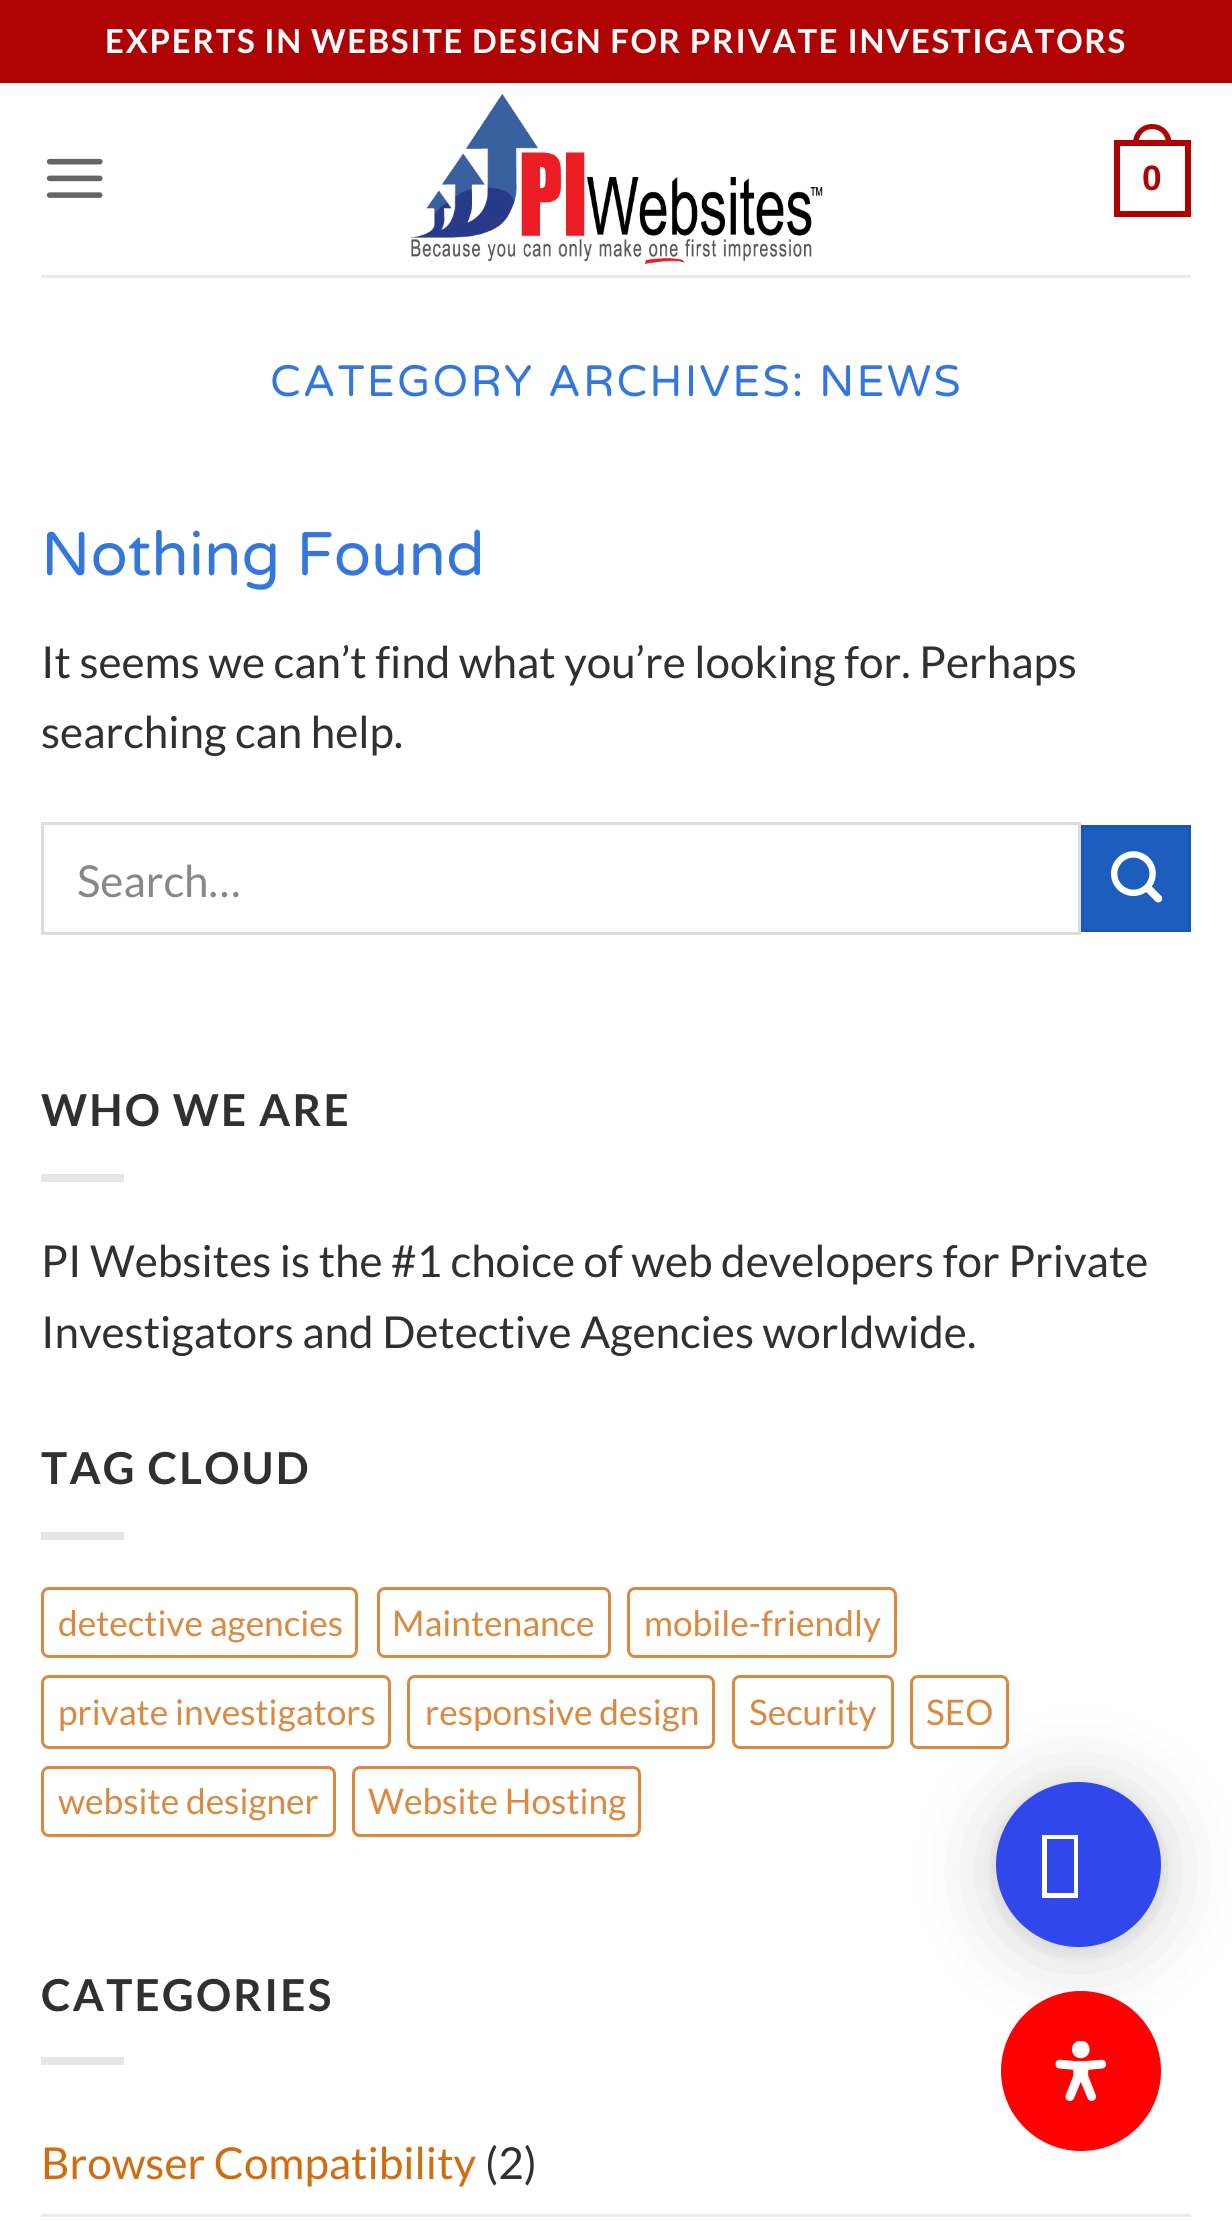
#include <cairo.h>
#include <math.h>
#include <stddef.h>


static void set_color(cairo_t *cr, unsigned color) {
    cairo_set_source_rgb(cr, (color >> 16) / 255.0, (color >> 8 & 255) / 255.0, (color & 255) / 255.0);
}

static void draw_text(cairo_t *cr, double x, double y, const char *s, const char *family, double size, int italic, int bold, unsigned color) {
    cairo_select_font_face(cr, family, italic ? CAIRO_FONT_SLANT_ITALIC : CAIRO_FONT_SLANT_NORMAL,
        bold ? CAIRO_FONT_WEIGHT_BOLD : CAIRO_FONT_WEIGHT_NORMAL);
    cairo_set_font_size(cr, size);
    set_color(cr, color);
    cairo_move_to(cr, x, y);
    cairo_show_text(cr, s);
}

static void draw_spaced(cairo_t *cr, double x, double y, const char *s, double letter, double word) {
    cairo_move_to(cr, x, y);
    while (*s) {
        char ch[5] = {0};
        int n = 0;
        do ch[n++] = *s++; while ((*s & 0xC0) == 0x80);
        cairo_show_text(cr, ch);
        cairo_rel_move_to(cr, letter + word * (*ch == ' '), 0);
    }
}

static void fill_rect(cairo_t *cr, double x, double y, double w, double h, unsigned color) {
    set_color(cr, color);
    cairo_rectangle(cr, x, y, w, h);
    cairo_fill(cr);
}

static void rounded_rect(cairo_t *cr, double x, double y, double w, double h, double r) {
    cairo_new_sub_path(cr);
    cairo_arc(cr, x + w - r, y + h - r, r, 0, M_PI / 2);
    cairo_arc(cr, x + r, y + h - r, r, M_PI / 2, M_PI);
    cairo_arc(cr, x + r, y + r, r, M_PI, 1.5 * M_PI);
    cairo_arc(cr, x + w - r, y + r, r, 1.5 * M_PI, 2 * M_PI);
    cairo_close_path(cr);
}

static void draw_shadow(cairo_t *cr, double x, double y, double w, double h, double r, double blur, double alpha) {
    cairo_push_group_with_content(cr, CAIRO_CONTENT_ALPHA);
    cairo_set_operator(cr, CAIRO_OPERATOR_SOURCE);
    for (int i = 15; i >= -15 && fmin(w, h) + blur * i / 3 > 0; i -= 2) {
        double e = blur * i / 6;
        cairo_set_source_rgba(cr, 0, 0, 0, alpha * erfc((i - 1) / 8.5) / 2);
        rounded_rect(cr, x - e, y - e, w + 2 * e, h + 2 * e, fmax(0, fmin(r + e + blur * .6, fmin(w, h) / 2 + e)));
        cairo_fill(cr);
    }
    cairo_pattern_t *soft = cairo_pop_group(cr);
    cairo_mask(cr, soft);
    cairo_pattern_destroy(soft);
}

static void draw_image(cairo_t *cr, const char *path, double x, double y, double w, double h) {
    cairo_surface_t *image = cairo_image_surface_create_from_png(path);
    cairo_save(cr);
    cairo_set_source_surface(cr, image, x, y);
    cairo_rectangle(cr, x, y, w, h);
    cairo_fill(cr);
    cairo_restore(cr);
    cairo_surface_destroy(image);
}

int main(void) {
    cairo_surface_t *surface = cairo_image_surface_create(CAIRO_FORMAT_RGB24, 1232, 2221);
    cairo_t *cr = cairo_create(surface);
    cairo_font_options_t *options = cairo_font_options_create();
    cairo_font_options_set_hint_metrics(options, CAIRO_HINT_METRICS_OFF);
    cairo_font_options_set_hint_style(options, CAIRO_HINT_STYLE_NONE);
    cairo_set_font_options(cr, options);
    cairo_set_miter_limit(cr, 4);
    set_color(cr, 0xFFFFFF);
    cairo_paint(cr);
    fill_rect(cr, 0, 0, 1232, 83, 0xAF0202);
    cairo_select_font_face(cr, "Lato", CAIRO_FONT_SLANT_NORMAL, CAIRO_FONT_WEIGHT_BOLD);
    cairo_set_font_size(cr, 33);
    set_color(cr, 0xFFFFFF);
    draw_spaced(cr, 105, 53, "EXPERTS IN WEBSITE DESIGN FOR PRIVATE INVESTIGATORS", 1.65, 0);
    draw_image(cr, "assets/img1.png", 46, 158, 57, 40);
    draw_image(cr, "assets/img2.png", 410, 93, 413, 171);
    cairo_rectangle(cr, 1117, 143, 71, 71);
    set_color(cr, 0xAF0202);
    cairo_set_line_width(cr, 6);
    cairo_stroke(cr);
    cairo_set_fill_rule(cr, CAIRO_FILL_RULE_EVEN_ODD);
    cairo_new_path(cr);
    cairo_move_to(cr, 1152, 124);
    cairo_curve_to(cr, 1163, 124, 1171.5, 132.5, 1171.5, 143);
    cairo_line_to(cr, 1171.5, 146);
    cairo_line_to(cr, 1133, 146);
    cairo_line_to(cr, 1133, 143);
    cairo_curve_to(cr, 1133, 132.5, 1141.5, 124, 1152, 124);
    cairo_close_path(cr);
    cairo_move_to(cr, 1152, 129);
    cairo_curve_to(cr, 1160, 129, 1166, 135.5, 1166, 143);
    cairo_line_to(cr, 1166, 146);
    cairo_line_to(cr, 1138.5, 146);
    cairo_line_to(cr, 1138.5, 143);
    cairo_curve_to(cr, 1138.5, 135.5, 1144.5, 129, 1152, 129);
    cairo_close_path(cr);
    cairo_fill(cr);
    draw_text(cr, 1142, 190, "0", "Liberation Sans", 35.25, 0, 1, 0xAF0202);
    fill_rect(cr, 41, 275, 1150, 3, 0xEAEAEA);
    cairo_select_font_face(cr, "Varela Round", CAIRO_FONT_SLANT_NORMAL, CAIRO_FONT_WEIGHT_NORMAL);
    cairo_set_font_size(cr, 44);
    set_color(cr, 0x3377DD);
    draw_spaced(cr, 270, 396, "CATEGORY ARCHIVES: NEWS", 2.2, 0);
    draw_text(cr, 41, 575, "Nothing Found", "Varela Round", 61.5, 0, 0, 0x3377DD);
    draw_text(cr, 41, 678, "It seems we can’t find what you’re looking for. Perhaps", "Lato", 44, 0, 0, 0x303030);
    draw_text(cr, 41, 748, "searching can help.", "Lato", 44, 0, 0, 0x303030);
    cairo_rectangle(cr, 42.5, 823.5, 1037, 110);
    set_color(cr, 0xDDDDDD);
    cairo_set_line_width(cr, 3);
    cairo_stroke(cr);
    draw_text(cr, 77, 897, "Search…", "Lato", 44, 0, 0, 0x888888);
    set_color(cr, 0x1C5DBE);
    cairo_rectangle(cr, 1082.5, 826.5, 107, 104);
    cairo_fill_preserve(cr);
    set_color(cr, 0x1B58B5);
    cairo_stroke(cr);
    draw_image(cr, "assets/img3.png", 1111, 851, 52, 52);
    cairo_select_font_face(cr, "Lato", CAIRO_FONT_SLANT_NORMAL, CAIRO_FONT_WEIGHT_BOLD);
    set_color(cr, 0x303030);
    draw_spaced(cr, 41, 1126, "WHO WE ARE", 2.2, 0);
    fill_rect(cr, 41, 1174, 83, 8, 0xE6E6E6);
    draw_text(cr, 41, 1277, "PI Websites is the #1 choice of web developers for Private", "Lato", 44, 0, 0, 0x303030);
    draw_text(cr, 41, 1348, "Investigators and Detective Agencies worldwide.", "Lato", 44, 0, 0, 0x303030);
    cairo_select_font_face(cr, "Lato", CAIRO_FONT_SLANT_NORMAL, CAIRO_FONT_WEIGHT_BOLD);
    draw_spaced(cr, 41, 1484, "TAG CLOUD", 2.2, 0);
    fill_rect(cr, 41, 1532, 83, 8, 0xE6E6E6);
    rounded_rect(cr, 42.5, 1588.5, 314, 68, 6.5);
    set_color(cr, 0xD98A40);
    cairo_stroke(cr);
    draw_text(cr, 58, 1636, "detective agencies", "Lato", 35.25, 0, 0, 0xD98A40);
    rounded_rect(cr, 378.5, 1588.5, 231, 68, 6.5);
    cairo_stroke(cr);
    draw_text(cr, 392, 1636, "Maintenance", "Lato", 35.25, 0, 0, 0xD98A40);
    rounded_rect(cr, 628.5, 1588.5, 267, 68, 6.5);
    cairo_stroke(cr);
    draw_text(cr, 644, 1636, "mobile-friendly", "Lato", 35.25, 0, 0, 0xD98A40);
    rounded_rect(cr, 42.5, 1676.5, 347, 71, 6.5);
    cairo_stroke(cr);
    draw_text(cr, 58, 1725, "private investigators", "Lato", 35.25, 0, 0, 0xD98A40);
    rounded_rect(cr, 408.5, 1676.5, 305, 71, 6.5);
    cairo_stroke(cr);
    draw_text(cr, 425, 1725, "responsive design", "Lato", 35.25, 0, 0, 0xD98A40);
    rounded_rect(cr, 733.5, 1676.5, 159, 71, 6.5);
    cairo_stroke(cr);
    draw_text(cr, 749, 1725, "Security", "Lato", 35.25, 0, 0, 0xD98A40);
    rounded_rect(cr, 911.5, 1676.5, 96, 71, 6.5);
    cairo_stroke(cr);
    draw_text(cr, 926, 1725, "SEO", "Lato", 35.25, 0, 0, 0xD98A40);
    rounded_rect(cr, 42.5, 1767.5, 292, 68, 6.5);
    cairo_stroke(cr);
    draw_text(cr, 58, 1814, "website designer", "Lato", 35.25, 0, 0, 0xD98A40);
    rounded_rect(cr, 353.5, 1767.5, 286, 68, 6.5);
    cairo_stroke(cr);
    draw_text(cr, 368, 1814, "Website Hosting", "Lato", 35.25, 0, 0, 0xD98A40);
    cairo_select_font_face(cr, "Lato", CAIRO_FONT_SLANT_NORMAL, CAIRO_FONT_WEIGHT_BOLD);
    cairo_set_font_size(cr, 44);
    set_color(cr, 0x303030);
    draw_spaced(cr, 41, 2011, "CATEGORIES", 2.2, 0);
    fill_rect(cr, 41, 2057, 83, 8, 0xE6E6E6);
    draw_text(cr, 41, 2179, "Browser Compatibility", "Lato", 44, 0, 0, 0xCF6D10);
    draw_text(cr, 485, 2179, "(2)", "Lato", 44, 0, 0, 0x303030);
    fill_rect(cr, 41, 2214, 1150, 3, 0xECECEC);
    set_color(cr, 0x000000);
    draw_shadow(cr, 996, 1788, 165, 165, 82.5, 44, 0.16);
    draw_shadow(cr, 996, 1785, 165, 165, 82.5, 8, 0.1);
    set_color(cr, 0x3047EC);
    cairo_arc(cr, 1078.5, 1864.5, 82.5, 0, 2 * M_PI);
    cairo_fill(cr);
    set_color(cr, 0xFFFFFF);
    cairo_set_fill_rule(cr, CAIRO_FILL_RULE_WINDING);
    cairo_new_path(cr);
    cairo_move_to(cr, 1042, 1898);
    cairo_line_to(cr, 1042, 1835);
    cairo_line_to(cr, 1078, 1835);
    cairo_line_to(cr, 1078, 1898);
    cairo_close_path(cr);
    cairo_move_to(cr, 1047, 1893);
    cairo_line_to(cr, 1074, 1893);
    cairo_line_to(cr, 1074, 1839);
    cairo_line_to(cr, 1047, 1839);
    cairo_close_path(cr);
    cairo_fill(cr);
    set_color(cr, 0xFF0003);
    cairo_arc(cr, 1081, 2071, 80, 0, 2 * M_PI);
    cairo_fill(cr);
    draw_image(cr, "assets/img4.png", 1055, 2041, 52, 60);
    cairo_surface_write_to_png(surface, "output.png");
    cairo_font_options_destroy(options);
    cairo_destroy(cr);
    cairo_surface_destroy(surface);
    return 0;
}
